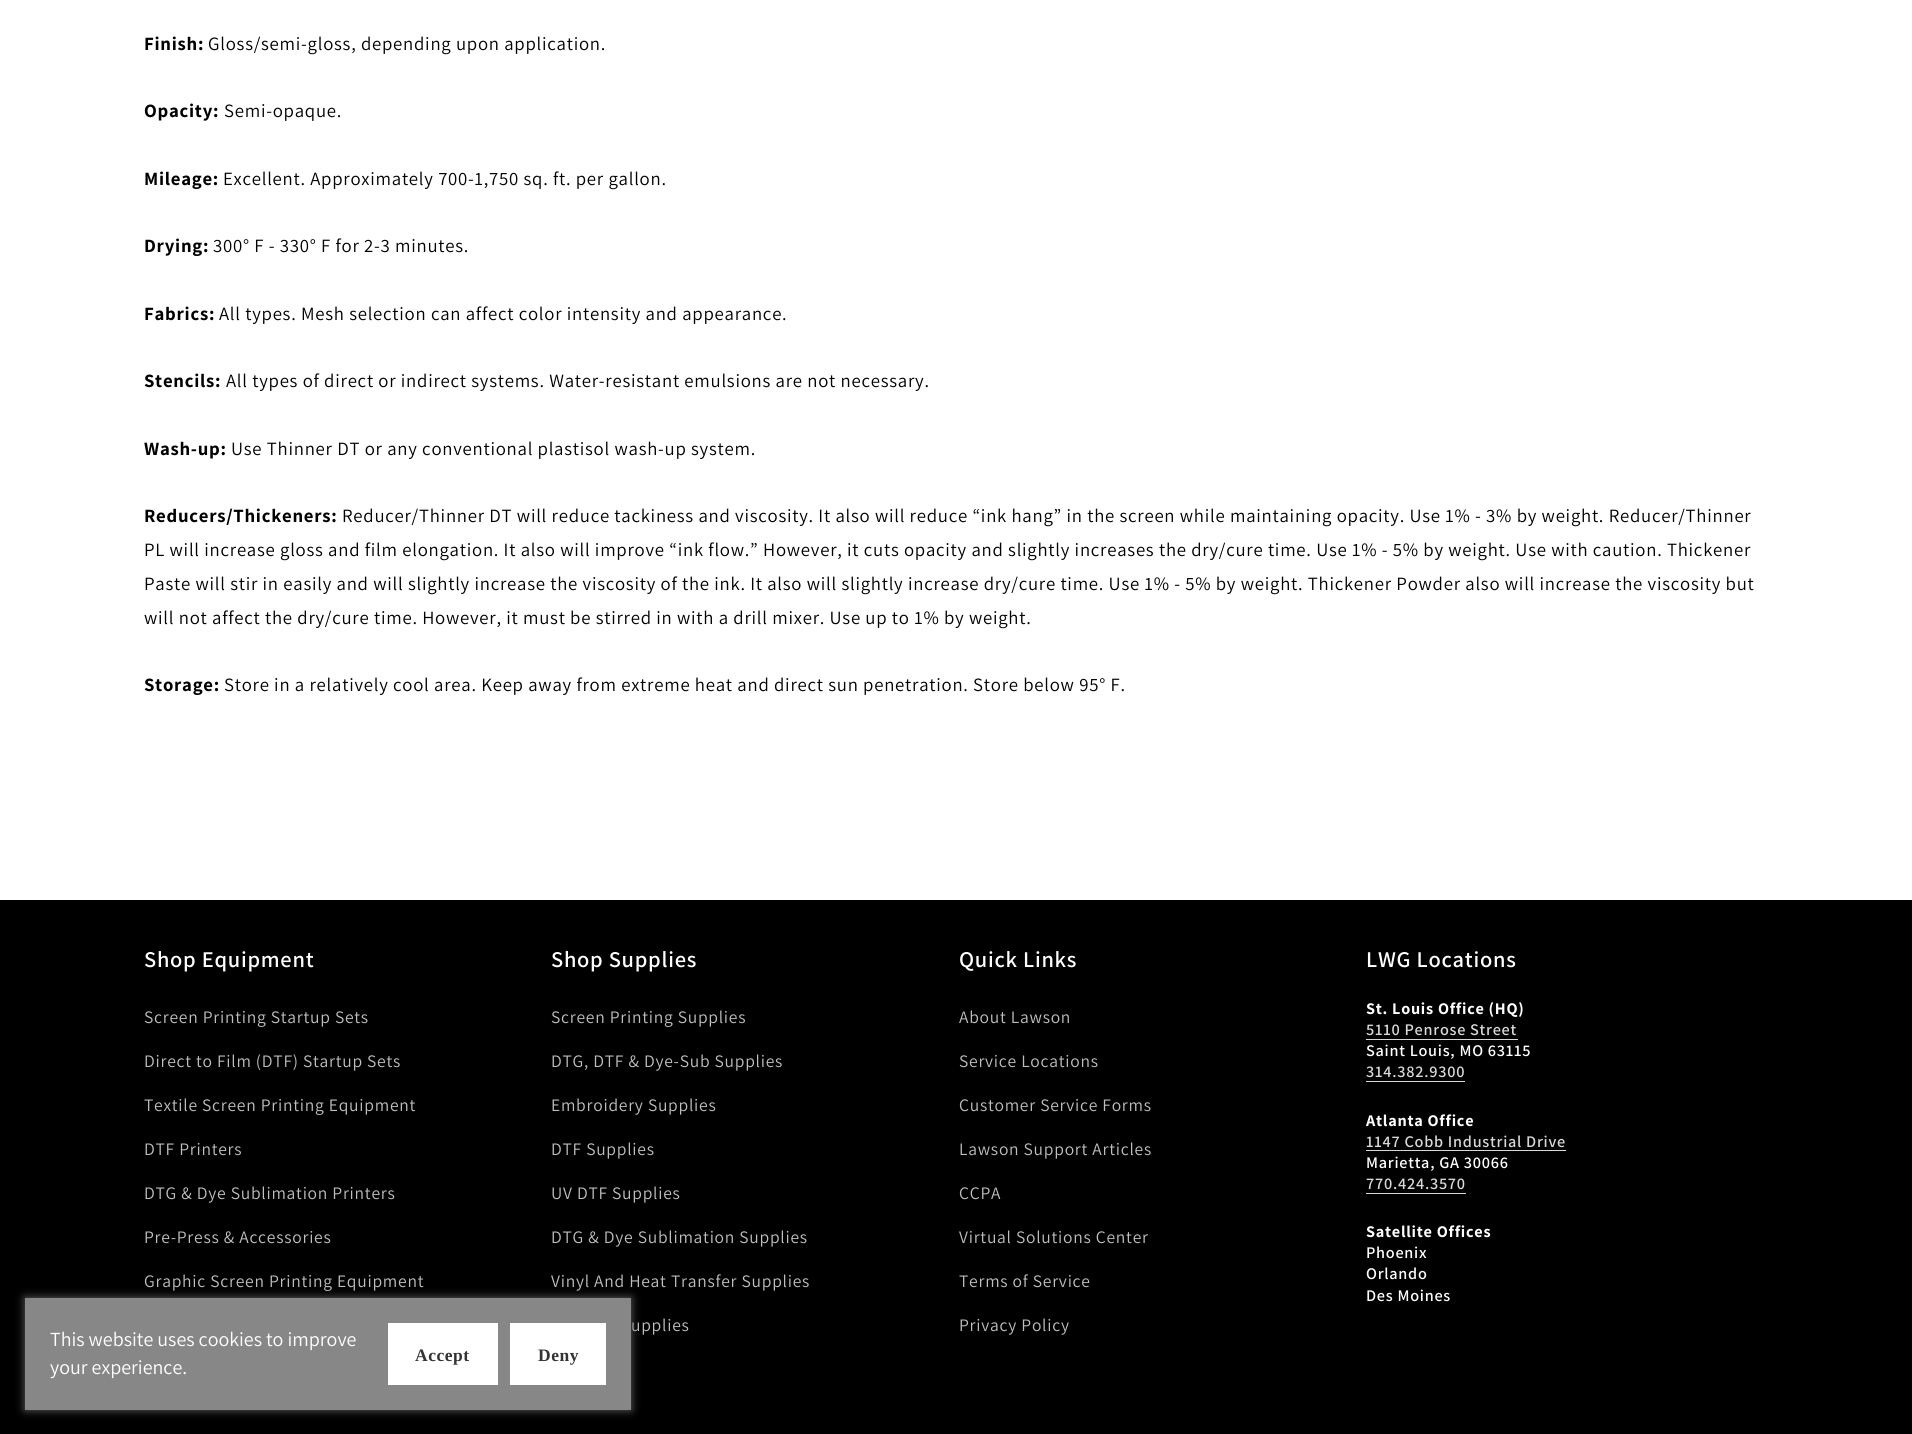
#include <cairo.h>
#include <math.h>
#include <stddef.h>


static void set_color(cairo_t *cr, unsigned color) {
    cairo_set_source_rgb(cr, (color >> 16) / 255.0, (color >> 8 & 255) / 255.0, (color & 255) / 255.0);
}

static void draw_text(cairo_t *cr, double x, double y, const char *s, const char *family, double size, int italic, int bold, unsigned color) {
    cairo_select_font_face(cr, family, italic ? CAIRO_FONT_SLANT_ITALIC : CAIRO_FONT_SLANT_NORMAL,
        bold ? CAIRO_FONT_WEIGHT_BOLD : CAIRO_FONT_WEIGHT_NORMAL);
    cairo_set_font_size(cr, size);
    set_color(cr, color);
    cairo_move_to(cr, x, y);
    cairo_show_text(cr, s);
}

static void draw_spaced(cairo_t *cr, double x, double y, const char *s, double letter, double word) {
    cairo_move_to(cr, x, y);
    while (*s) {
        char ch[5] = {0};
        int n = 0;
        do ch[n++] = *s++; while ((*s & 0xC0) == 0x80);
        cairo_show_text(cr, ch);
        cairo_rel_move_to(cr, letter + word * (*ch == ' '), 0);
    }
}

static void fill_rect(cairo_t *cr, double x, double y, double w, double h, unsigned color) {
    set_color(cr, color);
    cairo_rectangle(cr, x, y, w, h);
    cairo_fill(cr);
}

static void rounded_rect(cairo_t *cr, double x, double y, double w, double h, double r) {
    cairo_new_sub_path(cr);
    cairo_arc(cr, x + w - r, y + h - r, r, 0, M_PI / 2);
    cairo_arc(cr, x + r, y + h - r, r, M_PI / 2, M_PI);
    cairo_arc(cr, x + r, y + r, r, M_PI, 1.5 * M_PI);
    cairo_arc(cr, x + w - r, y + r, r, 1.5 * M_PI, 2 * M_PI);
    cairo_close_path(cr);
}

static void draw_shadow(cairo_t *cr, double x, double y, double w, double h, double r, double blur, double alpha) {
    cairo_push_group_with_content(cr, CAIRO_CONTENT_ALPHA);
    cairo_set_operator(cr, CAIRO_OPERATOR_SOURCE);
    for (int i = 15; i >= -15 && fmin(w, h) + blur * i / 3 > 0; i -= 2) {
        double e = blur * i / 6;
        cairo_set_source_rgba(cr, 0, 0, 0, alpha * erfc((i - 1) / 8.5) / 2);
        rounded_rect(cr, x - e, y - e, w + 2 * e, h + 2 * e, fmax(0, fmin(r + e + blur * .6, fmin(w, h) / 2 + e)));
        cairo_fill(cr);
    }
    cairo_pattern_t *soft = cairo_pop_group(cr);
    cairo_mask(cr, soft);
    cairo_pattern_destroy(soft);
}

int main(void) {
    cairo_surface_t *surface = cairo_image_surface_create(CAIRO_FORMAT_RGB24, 1912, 1434);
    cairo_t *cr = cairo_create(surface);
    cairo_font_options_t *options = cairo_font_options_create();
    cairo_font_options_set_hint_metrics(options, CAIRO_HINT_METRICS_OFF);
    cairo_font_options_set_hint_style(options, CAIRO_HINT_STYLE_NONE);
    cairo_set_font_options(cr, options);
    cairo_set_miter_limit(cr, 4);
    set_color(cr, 0xFFFFFF);
    cairo_paint(cr);
    cairo_select_font_face(cr, "Assistant", CAIRO_FONT_SLANT_NORMAL, CAIRO_FONT_WEIGHT_BOLD);
    cairo_set_font_size(cr, 18.75);
    set_color(cr, 0x000000);
    draw_spaced(cr, 144, 50, "Finish:", 0.75, 0);
    cairo_select_font_face(cr, "Assistant", CAIRO_FONT_SLANT_NORMAL, CAIRO_FONT_WEIGHT_NORMAL);
    draw_spaced(cr, 208, 50, "Gloss/semi-gloss, depending upon application.", 0.75, 0);
    cairo_select_font_face(cr, "Assistant", CAIRO_FONT_SLANT_NORMAL, CAIRO_FONT_WEIGHT_BOLD);
    draw_spaced(cr, 144, 117, "Opacity:", 0.75, 0);
    cairo_select_font_face(cr, "Assistant", CAIRO_FONT_SLANT_NORMAL, CAIRO_FONT_WEIGHT_NORMAL);
    draw_spaced(cr, 224, 117, "Semi-opaque.", 0.75, 0);
    cairo_select_font_face(cr, "Assistant", CAIRO_FONT_SLANT_NORMAL, CAIRO_FONT_WEIGHT_BOLD);
    draw_spaced(cr, 144, 185, "Mileage:", 0.75, 0);
    cairo_select_font_face(cr, "Assistant", CAIRO_FONT_SLANT_NORMAL, CAIRO_FONT_WEIGHT_NORMAL);
    draw_spaced(cr, 223, 185, "Excellent. Approximately 700-1,750 sq. ft. per gallon.", 0.75, 0);
    cairo_select_font_face(cr, "Assistant", CAIRO_FONT_SLANT_NORMAL, CAIRO_FONT_WEIGHT_BOLD);
    draw_spaced(cr, 144, 252, "Drying:", 0.75, 0);
    cairo_select_font_face(cr, "Assistant", CAIRO_FONT_SLANT_NORMAL, CAIRO_FONT_WEIGHT_NORMAL);
    draw_spaced(cr, 213, 252, "300° F - 330° F for 2-3 minutes.", 0.75, 0);
    cairo_select_font_face(cr, "Assistant", CAIRO_FONT_SLANT_NORMAL, CAIRO_FONT_WEIGHT_BOLD);
    draw_spaced(cr, 144, 320, "Fabrics:", 0.75, 0);
    cairo_select_font_face(cr, "Assistant", CAIRO_FONT_SLANT_NORMAL, CAIRO_FONT_WEIGHT_NORMAL);
    draw_spaced(cr, 219, 320, "All types. Mesh selection can affect color intensity and appearance.", 0.75, 0);
    cairo_select_font_face(cr, "Assistant", CAIRO_FONT_SLANT_NORMAL, CAIRO_FONT_WEIGHT_BOLD);
    draw_spaced(cr, 144, 387, "Stencils:", 0.75, 0);
    cairo_select_font_face(cr, "Assistant", CAIRO_FONT_SLANT_NORMAL, CAIRO_FONT_WEIGHT_NORMAL);
    draw_spaced(cr, 226, 387, "All types of direct or indirect systems. Water-resistant emulsions are not necessary.", 0.75, 0);
    cairo_select_font_face(cr, "Assistant", CAIRO_FONT_SLANT_NORMAL, CAIRO_FONT_WEIGHT_BOLD);
    draw_spaced(cr, 144, 455, "Wash-up:", 0.75, 0);
    cairo_select_font_face(cr, "Assistant", CAIRO_FONT_SLANT_NORMAL, CAIRO_FONT_WEIGHT_NORMAL);
    draw_spaced(cr, 231, 455, "Use Thinner DT or any conventional plastisol wash-up system.", 0.75, 0);
    cairo_select_font_face(cr, "Assistant", CAIRO_FONT_SLANT_NORMAL, CAIRO_FONT_WEIGHT_BOLD);
    draw_spaced(cr, 144, 522, "Reducers/Thickeners:", 0.75, 0);
    cairo_select_font_face(cr, "Assistant", CAIRO_FONT_SLANT_NORMAL, CAIRO_FONT_WEIGHT_NORMAL);
    draw_spaced(cr, 342, 522, "Reducer/Thinner DT will reduce tackiness and viscosity. It also will reduce “ink hang” in the screen while maintaining opacity. Use 1% - 3% by weight. Reducer/Thinner", 0.75, 0);
    draw_spaced(cr, 144, 556, "PL will increase gloss and film elongation. It also will improve “ink flow.” However, it cuts opacity and slightly increases the dry/cure time. Use 1% - 5% by weight. Use with caution. Thickener", 0.75, 0);
    draw_spaced(cr, 144, 590, "Paste will stir in easily and will slightly increase the viscosity of the ink. It also will slightly increase dry/cure time. Use 1% - 5% by weight. Thickener Powder also will increase the viscosity but", 0.75, 0);
    draw_spaced(cr, 144, 624, "will not affect the dry/cure time. However, it must be stirred in with a drill mixer. Use up to 1% by weight.", 0.75, 0);
    cairo_select_font_face(cr, "Assistant", CAIRO_FONT_SLANT_NORMAL, CAIRO_FONT_WEIGHT_BOLD);
    draw_spaced(cr, 144, 691, "Storage:", 0.75, 0);
    cairo_select_font_face(cr, "Assistant", CAIRO_FONT_SLANT_NORMAL, CAIRO_FONT_WEIGHT_NORMAL);
    draw_spaced(cr, 224, 691, "Store in a relatively cool area. Keep away from extreme heat and direct sun penetration. Store below 95° F.", 0.75, 0);
    fill_rect(cr, 0, 900, 1912, 534, 0x000000);
    cairo_select_font_face(cr, "Assistant SemiBold", CAIRO_FONT_SLANT_NORMAL, CAIRO_FONT_WEIGHT_NORMAL);
    cairo_set_font_size(cr, 22.5);
    set_color(cr, 0xFFFFFF);
    draw_spaced(cr, 144, 967, "Shop Equipment", 0.75, 0);
    cairo_select_font_face(cr, "Assistant", CAIRO_FONT_SLANT_NORMAL, CAIRO_FONT_WEIGHT_NORMAL);
    cairo_set_font_size(cr, 17.5);
    set_color(cr, 0xBFBFBF);
    draw_spaced(cr, 144, 1023, "Screen Printing Startup Sets", 0.75, 0);
    draw_spaced(cr, 144, 1067, "Direct to Film (DTF) Startup Sets", 0.75, 0);
    draw_spaced(cr, 144, 1111, "Textile Screen Printing Equipment", 0.75, 0);
    draw_spaced(cr, 144, 1155, "DTF Printers", 0.75, 0);
    draw_spaced(cr, 144, 1199, "DTG & Dye Sublimation Printers", 0.75, 0);
    draw_spaced(cr, 144, 1243, "Pre-Press & Accessories", 0.75, 0);
    draw_spaced(cr, 144, 1287, "Graphic Screen Printing Equipment", 0.75, 0);
    cairo_select_font_face(cr, "Assistant SemiBold", CAIRO_FONT_SLANT_NORMAL, CAIRO_FONT_WEIGHT_NORMAL);
    cairo_set_font_size(cr, 22.5);
    set_color(cr, 0xFFFFFF);
    draw_spaced(cr, 551, 967, "Shop Supplies", 0.75, 0);
    cairo_select_font_face(cr, "Assistant", CAIRO_FONT_SLANT_NORMAL, CAIRO_FONT_WEIGHT_NORMAL);
    cairo_set_font_size(cr, 17.5);
    set_color(cr, 0xBFBFBF);
    draw_spaced(cr, 551, 1023, "Screen Printing Supplies", 0.75, 0);
    draw_spaced(cr, 551, 1067, "DTG, DTF & Dye-Sub Supplies", 0.75, 0);
    draw_spaced(cr, 551, 1111, "Embroidery Supplies", 0.75, 0);
    draw_spaced(cr, 551, 1155, "DTF Supplies", 0.75, 0);
    draw_spaced(cr, 551, 1199, "UV DTF Supplies", 0.75, 0);
    draw_spaced(cr, 551, 1243, "DTG & Dye Sublimation Supplies", 0.75, 0);
    draw_spaced(cr, 551, 1287, "Vinyl And Heat Transfer Supplies", 0.75, 0);
    draw_spaced(cr, 631, 1331, "upplies", 0.75, 0);
    cairo_select_font_face(cr, "Assistant SemiBold", CAIRO_FONT_SLANT_NORMAL, CAIRO_FONT_WEIGHT_NORMAL);
    cairo_set_font_size(cr, 22.5);
    set_color(cr, 0xFFFFFF);
    draw_spaced(cr, 959, 967, "Quick Links", 0.75, 0);
    cairo_select_font_face(cr, "Assistant", CAIRO_FONT_SLANT_NORMAL, CAIRO_FONT_WEIGHT_NORMAL);
    cairo_set_font_size(cr, 17.5);
    set_color(cr, 0xBFBFBF);
    draw_spaced(cr, 959, 1023, "About Lawson", 0.75, 0);
    draw_spaced(cr, 959, 1067, "Service Locations", 0.75, 0);
    draw_spaced(cr, 959, 1111, "Customer Service Forms", 0.75, 0);
    draw_spaced(cr, 959, 1155, "Lawson Support Articles", 0.75, 0);
    draw_spaced(cr, 959, 1199, "CCPA", 0.75, 0);
    draw_spaced(cr, 959, 1243, "Virtual Solutions Center", 0.75, 0);
    draw_spaced(cr, 959, 1287, "Terms of Service", 0.75, 0);
    draw_spaced(cr, 959, 1331, "Privacy Policy", 0.75, 0);
    cairo_select_font_face(cr, "Assistant SemiBold", CAIRO_FONT_SLANT_NORMAL, CAIRO_FONT_WEIGHT_NORMAL);
    cairo_set_font_size(cr, 22.5);
    set_color(cr, 0xFFFFFF);
    draw_spaced(cr, 1366, 967, "LWG Locations", 0.75, 0);
    cairo_select_font_face(cr, "Assistant", CAIRO_FONT_SLANT_NORMAL, CAIRO_FONT_WEIGHT_BOLD);
    cairo_set_font_size(cr, 16.25);
    draw_spaced(cr, 1366, 1014, "St. Louis Office (HQ)", 0.75, 0);
    cairo_select_font_face(cr, "Assistant SemiBold", CAIRO_FONT_SLANT_NORMAL, CAIRO_FONT_WEIGHT_NORMAL);
    set_color(cr, 0xD9D9D9);
    draw_spaced(cr, 1366, 1035, "5110 Penrose Street", 0.75, 0);
    fill_rect(cr, 1366, 1039, 152, 1, 0xD9D9D9);
    set_color(cr, 0xFFFFFF);
    draw_spaced(cr, 1366, 1056, "Saint Louis, MO 63115", 0.75, 0);
    set_color(cr, 0xD9D9D9);
    draw_spaced(cr, 1366, 1077, "314.382.9300", 0.75, 0);
    fill_rect(cr, 1366, 1081, 99, 1, 0xD9D9D9);
    cairo_select_font_face(cr, "Assistant", CAIRO_FONT_SLANT_NORMAL, CAIRO_FONT_WEIGHT_BOLD);
    set_color(cr, 0xFFFFFF);
    draw_spaced(cr, 1366, 1126, "Atlanta Office", 0.75, 0);
    cairo_select_font_face(cr, "Assistant SemiBold", CAIRO_FONT_SLANT_NORMAL, CAIRO_FONT_WEIGHT_NORMAL);
    set_color(cr, 0xD9D9D9);
    draw_spaced(cr, 1366, 1147, "1147 Cobb Industrial Drive", 0.75, 0);
    fill_rect(cr, 1366, 1150, 200, 1, 0xD9D9D9);
    set_color(cr, 0xFFFFFF);
    draw_spaced(cr, 1366, 1168, "Marietta, GA 30066", 0.75, 0);
    set_color(cr, 0xD9D9D9);
    draw_spaced(cr, 1366, 1189, "770.424.3570", 0.75, 0);
    fill_rect(cr, 1366, 1193, 100, 1, 0xD9D9D9);
    cairo_select_font_face(cr, "Assistant", CAIRO_FONT_SLANT_NORMAL, CAIRO_FONT_WEIGHT_BOLD);
    set_color(cr, 0xFFFFFF);
    draw_spaced(cr, 1366, 1237, "Satellite Offices", 0.75, 0);
    cairo_select_font_face(cr, "Assistant SemiBold", CAIRO_FONT_SLANT_NORMAL, CAIRO_FONT_WEIGHT_NORMAL);
    draw_spaced(cr, 1366, 1258, "Phoenix", 0.75, 0);
    draw_spaced(cr, 1366, 1279, "Orlando", 0.75, 0);
    draw_spaced(cr, 1366, 1301, "Des Moines", 0.75, 0);
    set_color(cr, 0x666666);
    draw_shadow(cr, 25, 1298, 606, 112, 0, 4.5, 1);
    fill_rect(cr, 25, 1298, 606, 112, 0x878787);
    draw_text(cr, 50, 1346, "This website uses cookies to improve", "Assistant", 20, 0, 0, 0xFFFFFF);
    draw_text(cr, 50, 1374, "your experience.", "Assistant", 20, 0, 0, 0xFFFFFF);
    fill_rect(cr, 388, 1323, 110, 62, 0xFFFFFF);
    cairo_select_font_face(cr, "Liberation Serif", CAIRO_FONT_SLANT_NORMAL, CAIRO_FONT_WEIGHT_BOLD);
    cairo_set_font_size(cr, 17.5);
    set_color(cr, 0x333333);
    draw_spaced(cr, 415, 1361, "Accept", 0.5, 0);
    fill_rect(cr, 510, 1323, 96, 62, 0xFFFFFF);
    set_color(cr, 0x333333);
    draw_spaced(cr, 538, 1361, "Deny", 0.5, 0);
    cairo_surface_write_to_png(surface, "output.png");
    cairo_font_options_destroy(options);
    cairo_destroy(cr);
    cairo_surface_destroy(surface);
    return 0;
}
